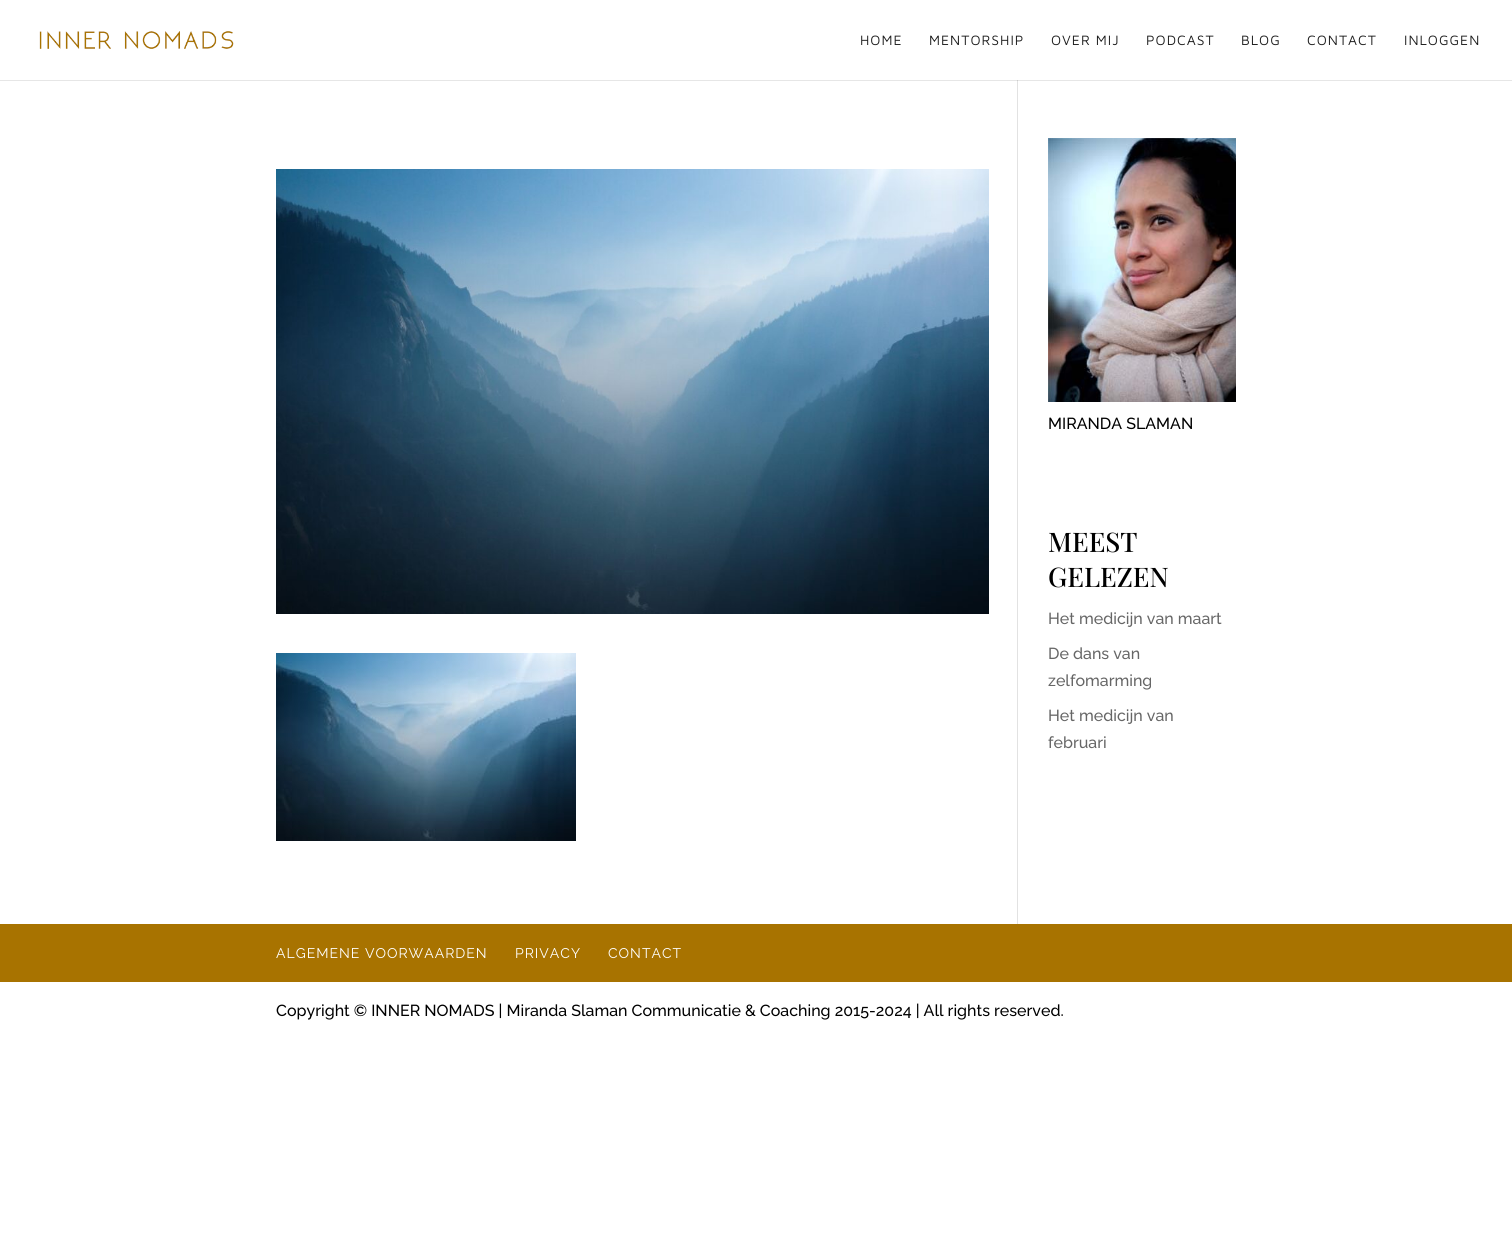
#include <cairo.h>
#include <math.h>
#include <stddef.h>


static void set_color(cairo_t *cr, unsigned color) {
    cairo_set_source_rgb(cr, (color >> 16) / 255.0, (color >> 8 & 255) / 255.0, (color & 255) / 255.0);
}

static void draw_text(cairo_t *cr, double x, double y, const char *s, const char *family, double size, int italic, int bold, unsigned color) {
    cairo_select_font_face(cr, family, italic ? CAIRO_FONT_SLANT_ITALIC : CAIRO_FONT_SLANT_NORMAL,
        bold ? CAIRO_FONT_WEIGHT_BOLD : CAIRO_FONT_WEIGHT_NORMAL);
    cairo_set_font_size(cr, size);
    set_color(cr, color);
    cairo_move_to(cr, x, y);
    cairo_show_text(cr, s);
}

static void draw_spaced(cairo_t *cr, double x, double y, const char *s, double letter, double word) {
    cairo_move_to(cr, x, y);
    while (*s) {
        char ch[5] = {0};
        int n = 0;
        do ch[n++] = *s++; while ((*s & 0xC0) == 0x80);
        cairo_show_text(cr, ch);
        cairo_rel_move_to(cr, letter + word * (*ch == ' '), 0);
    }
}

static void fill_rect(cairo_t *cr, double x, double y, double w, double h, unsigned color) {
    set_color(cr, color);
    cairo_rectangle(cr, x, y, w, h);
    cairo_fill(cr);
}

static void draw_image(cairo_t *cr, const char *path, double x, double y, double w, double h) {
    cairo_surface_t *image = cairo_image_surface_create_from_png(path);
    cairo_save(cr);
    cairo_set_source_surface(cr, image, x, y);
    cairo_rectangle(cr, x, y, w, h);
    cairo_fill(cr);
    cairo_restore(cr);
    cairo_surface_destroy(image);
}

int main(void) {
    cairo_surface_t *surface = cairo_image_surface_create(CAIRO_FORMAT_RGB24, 1512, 1247);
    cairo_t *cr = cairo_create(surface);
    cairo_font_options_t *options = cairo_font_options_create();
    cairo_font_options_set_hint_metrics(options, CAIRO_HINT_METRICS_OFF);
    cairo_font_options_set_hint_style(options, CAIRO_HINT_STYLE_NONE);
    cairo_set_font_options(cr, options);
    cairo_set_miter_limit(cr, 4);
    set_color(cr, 0xFFFFFF);
    cairo_paint(cr);
    fill_rect(cr, 0, 80, 1512, 1, 0xE6E6E6);
    draw_image(cr, "assets/img1.png", 39, 31, 195, 18);
    cairo_select_font_face(cr, "Maven Pro", CAIRO_FONT_SLANT_NORMAL, CAIRO_FONT_WEIGHT_NORMAL);
    cairo_set_font_size(cr, 14);
    set_color(cr, 0x1F1F1F);
    draw_spaced(cr, 860, 45, "HOME", 1, 0);
    draw_spaced(cr, 929, 45, "MENTORSHIP", 1, 0);
    draw_spaced(cr, 1051, 45, "OVER MIJ", 1, 0);
    draw_spaced(cr, 1146, 45, "PODCAST", 1, 0);
    draw_spaced(cr, 1241, 45, "BLOG", 1, 0);
    draw_spaced(cr, 1307, 45, "CONTACT", 1, 0);
    draw_spaced(cr, 1404, 45, "INLOGGEN", 1, 0);
    fill_rect(cr, 1017, 80, 1, 844, 0xE2E2E2);
    fill_rect(cr, 1017, 80, 1, 1, 0xCBCBCB);
    draw_image(cr, "assets/img2.png", 276, 169, 713, 445);
    draw_image(cr, "assets/img3.png", 276, 653, 300, 188);
    draw_image(cr, "assets/img4.png", 1048, 138, 188, 264);
    draw_text(cr, 1048, 429, "MIRANDA SLAMAN", "Raleway Medium", 16, 0, 0, 0x000000);
    draw_text(cr, 1048, 552, "MEEST", "Playfair Display Medium", 27, 0, 0, 0x000000);
    draw_text(cr, 1048, 587, "GELEZEN", "Playfair Display Medium", 27, 0, 0, 0x000000);
    draw_text(cr, 1048, 624, "Het medicijn van maart", "Raleway Medium", 16, 0, 0, 0x666666);
    draw_text(cr, 1048, 659, "De dans van", "Raleway Medium", 16, 0, 0, 0x666666);
    draw_text(cr, 1048, 686, "zelfomarming", "Raleway Medium", 16, 0, 0, 0x666666);
    draw_text(cr, 1048, 721, "Het medicijn van", "Raleway Medium", 16, 0, 0, 0x666666);
    draw_text(cr, 1048, 748, "februari", "Raleway Medium", 16, 0, 0, 0x666666);
    fill_rect(cr, 0, 924, 1512, 58, 0xA87300);
    cairo_select_font_face(cr, "Raleway", CAIRO_FONT_SLANT_NORMAL, CAIRO_FONT_WEIGHT_NORMAL);
    cairo_set_font_size(cr, 14);
    set_color(cr, 0xFFFFFF);
    draw_spaced(cr, 276, 958, "ALGEMENE VOORWAARDEN", 1, 0);
    draw_spaced(cr, 515, 958, "PRIVACY", 1, 0);
    draw_spaced(cr, 608, 958, "CONTACT", 1, 0);
    draw_text(cr, 276, 1016, "Copyright © INNER NOMADS | Miranda Slaman Communicatie & Coaching 2015-2024 | All rights reserved.", "Raleway Medium", 16, 0, 0, 0x000000);
    cairo_surface_write_to_png(surface, "output.png");
    cairo_font_options_destroy(options);
    cairo_destroy(cr);
    cairo_surface_destroy(surface);
    return 0;
}
